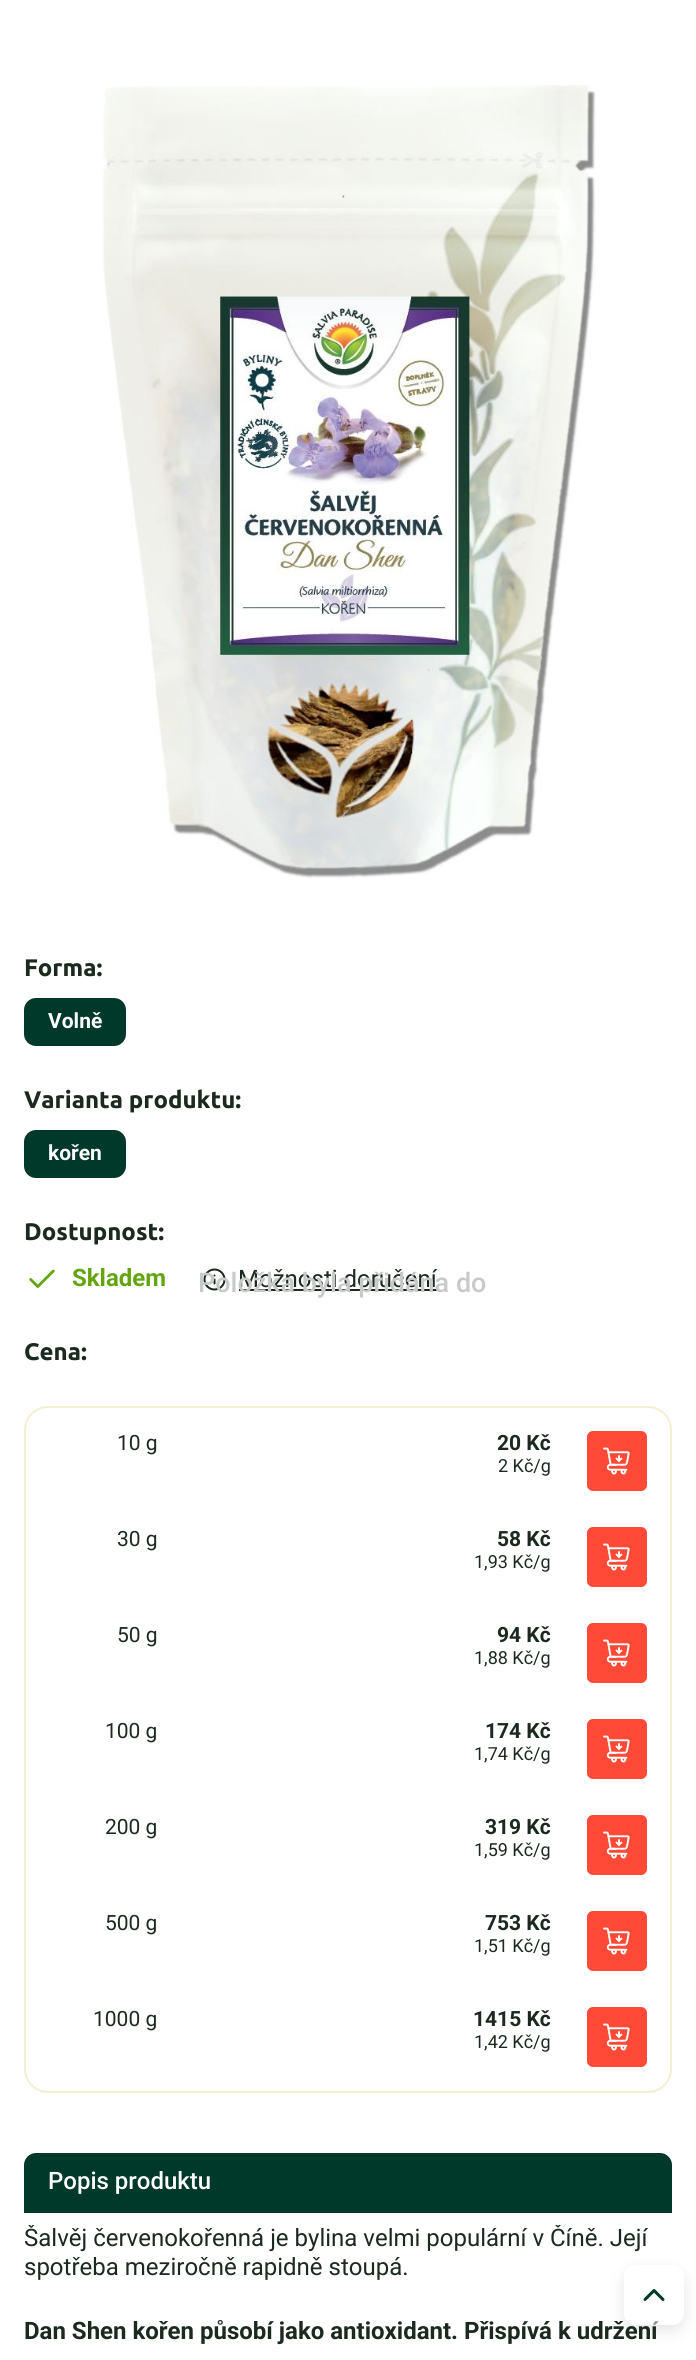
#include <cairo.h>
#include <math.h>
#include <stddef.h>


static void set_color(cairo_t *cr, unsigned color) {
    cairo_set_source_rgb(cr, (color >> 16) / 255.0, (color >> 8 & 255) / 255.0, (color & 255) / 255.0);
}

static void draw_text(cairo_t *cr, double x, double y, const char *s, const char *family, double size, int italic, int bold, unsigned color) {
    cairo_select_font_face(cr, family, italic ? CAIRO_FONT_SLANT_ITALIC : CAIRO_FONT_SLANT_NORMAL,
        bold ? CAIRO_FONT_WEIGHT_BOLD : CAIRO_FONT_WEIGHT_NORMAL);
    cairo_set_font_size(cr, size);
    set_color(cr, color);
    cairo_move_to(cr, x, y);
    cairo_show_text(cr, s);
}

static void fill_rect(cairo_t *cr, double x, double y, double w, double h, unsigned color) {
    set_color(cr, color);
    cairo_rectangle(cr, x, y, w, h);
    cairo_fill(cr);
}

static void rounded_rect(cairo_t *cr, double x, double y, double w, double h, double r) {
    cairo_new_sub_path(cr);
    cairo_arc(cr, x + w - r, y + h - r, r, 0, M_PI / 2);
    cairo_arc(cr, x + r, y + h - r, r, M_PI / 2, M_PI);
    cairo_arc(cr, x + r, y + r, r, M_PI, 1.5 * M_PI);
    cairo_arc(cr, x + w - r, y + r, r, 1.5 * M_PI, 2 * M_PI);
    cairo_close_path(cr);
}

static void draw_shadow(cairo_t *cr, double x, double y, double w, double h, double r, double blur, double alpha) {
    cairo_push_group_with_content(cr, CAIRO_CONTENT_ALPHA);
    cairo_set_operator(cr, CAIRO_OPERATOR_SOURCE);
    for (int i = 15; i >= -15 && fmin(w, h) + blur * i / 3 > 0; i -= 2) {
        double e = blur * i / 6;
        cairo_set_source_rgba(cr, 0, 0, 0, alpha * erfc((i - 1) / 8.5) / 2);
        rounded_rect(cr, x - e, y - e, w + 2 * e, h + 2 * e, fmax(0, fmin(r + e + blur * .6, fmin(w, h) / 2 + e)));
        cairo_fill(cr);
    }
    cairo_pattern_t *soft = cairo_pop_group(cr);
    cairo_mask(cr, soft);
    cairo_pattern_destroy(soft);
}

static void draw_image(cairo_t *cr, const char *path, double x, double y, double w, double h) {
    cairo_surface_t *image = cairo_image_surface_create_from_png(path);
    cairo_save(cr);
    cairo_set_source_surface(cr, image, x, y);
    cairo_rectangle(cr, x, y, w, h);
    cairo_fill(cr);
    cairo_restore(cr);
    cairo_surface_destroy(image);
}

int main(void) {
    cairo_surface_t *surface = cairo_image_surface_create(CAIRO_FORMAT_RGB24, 696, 2360);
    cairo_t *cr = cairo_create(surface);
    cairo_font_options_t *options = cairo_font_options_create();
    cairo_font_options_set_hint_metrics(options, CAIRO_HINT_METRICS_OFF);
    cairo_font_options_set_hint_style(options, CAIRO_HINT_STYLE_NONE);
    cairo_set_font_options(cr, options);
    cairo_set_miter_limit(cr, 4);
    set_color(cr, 0xFFFFFF);
    cairo_paint(cr);
    draw_image(cr, "assets/img1.png", 102, 85, 494, 793);
    draw_text(cr, 24, 976, "Forma:", "Ubuntu", 24, 0, 1, 0x1C291E);
    set_color(cr, 0x003829);
    rounded_rect(cr, 24, 998, 102, 48, 12);
    cairo_fill(cr);
    draw_text(cr, 48, 1028, "Volně", "Roboto", 21, 0, 1, 0xFFFFFF);
    draw_text(cr, 24, 1108, "Varianta produktu:", "Ubuntu", 24, 0, 1, 0x1C291E);
    set_color(cr, 0x003829);
    rounded_rect(cr, 24, 1130, 102, 48, 12);
    cairo_fill(cr);
    draw_text(cr, 48, 1160, "kořen", "Roboto", 21, 0, 1, 0xFFFFFF);
    draw_text(cr, 24, 1240, "Dostupnost:", "Ubuntu", 24, 0, 1, 0x1C291E);
    draw_image(cr, "assets/img2.png", 29, 1269, 26, 19);
    draw_text(cr, 72, 1286, "Skladem", "Roboto", 24, 0, 1, 0x63A50E);
    draw_image(cr, "assets/img3.png", 203, 1268, 23, 23);
    draw_text(cr, 238, 1287, "Možnosti doručení", "Roboto", 24, 0, 0, 0x1C291E);
    fill_rect(cr, 239, 1289, 198, 2, 0x1C291E);
    draw_text(cr, 198, 1292, "Položka byla přidána do", "Roboto Medium", 27, 0, 0, 0xC7CAC8);
    draw_text(cr, 24, 1360, "Cena:", "Ubuntu", 24, 0, 1, 0x1C291E);
    rounded_rect(cr, 25, 1407, 646, 685, 23);
    set_color(cr, 0xF4EED4);
    cairo_stroke(cr);
    draw_text(cr, 117, 1450, "10 g", "Roboto", 21, 0, 0, 0x1C291E);
    draw_text(cr, 497, 1450, "20 Kč", "Roboto", 21, 0, 1, 0x1C291E);
    draw_text(cr, 498, 1472, "2 Kč/g", "Roboto", 18, 0, 0, 0x1C291E);
    set_color(cr, 0xFF4A38);
    rounded_rect(cr, 587, 1431, 60, 60, 6);
    cairo_fill(cr);
    draw_image(cr, "assets/img4.png", 603, 1447, 27, 28);
    draw_text(cr, 117, 1546, "30 g", "Roboto", 21, 0, 0, 0x1C291E);
    draw_text(cr, 497, 1546, "58 Kč", "Roboto", 21, 0, 1, 0x1C291E);
    draw_text(cr, 474, 1568, "1,93 Kč/g", "Roboto", 18, 0, 0, 0x1C291E);
    set_color(cr, 0xFF4A38);
    rounded_rect(cr, 587, 1527, 60, 60, 6);
    cairo_fill(cr);
    draw_image(cr, "assets/img4.png", 603, 1543, 27, 28);
    draw_text(cr, 117, 1642, "50 g", "Roboto", 21, 0, 0, 0x1C291E);
    draw_text(cr, 497, 1642, "94 Kč", "Roboto", 21, 0, 1, 0x1C291E);
    draw_text(cr, 474, 1664, "1,88 Kč/g", "Roboto", 18, 0, 0, 0x1C291E);
    set_color(cr, 0xFF4A38);
    rounded_rect(cr, 587, 1623, 60, 60, 6);
    cairo_fill(cr);
    draw_image(cr, "assets/img4.png", 603, 1639, 27, 28);
    draw_text(cr, 105, 1738, "100 g", "Roboto", 21, 0, 0, 0x1C291E);
    draw_text(cr, 485, 1738, "174 Kč", "Roboto", 21, 0, 1, 0x1C291E);
    draw_text(cr, 474, 1760, "1,74 Kč/g", "Roboto", 18, 0, 0, 0x1C291E);
    set_color(cr, 0xFF4A38);
    rounded_rect(cr, 587, 1719, 60, 60, 6);
    cairo_fill(cr);
    draw_image(cr, "assets/img4.png", 603, 1735, 27, 28);
    draw_text(cr, 105, 1834, "200 g", "Roboto", 21, 0, 0, 0x1C291E);
    draw_text(cr, 485, 1834, "319 Kč", "Roboto", 21, 0, 1, 0x1C291E);
    draw_text(cr, 474, 1856, "1,59 Kč/g", "Roboto", 18, 0, 0, 0x1C291E);
    set_color(cr, 0xFF4A38);
    rounded_rect(cr, 587, 1815, 60, 60, 6);
    cairo_fill(cr);
    draw_image(cr, "assets/img4.png", 603, 1831, 27, 28);
    draw_text(cr, 105, 1930, "500 g", "Roboto", 21, 0, 0, 0x1C291E);
    draw_text(cr, 485, 1930, "753 Kč", "Roboto", 21, 0, 1, 0x1C291E);
    draw_text(cr, 474, 1952, "1,51 Kč/g", "Roboto", 18, 0, 0, 0x1C291E);
    set_color(cr, 0xFF4A38);
    rounded_rect(cr, 587, 1911, 60, 60, 6);
    cairo_fill(cr);
    draw_image(cr, "assets/img4.png", 603, 1927, 27, 28);
    draw_text(cr, 93, 2026, "1000 g", "Roboto", 21, 0, 0, 0x1C291E);
    draw_text(cr, 473, 2026, "1415 Kč", "Roboto", 21, 0, 1, 0x1C291E);
    draw_text(cr, 474, 2048, "1,42 Kč/g", "Roboto", 18, 0, 0, 0x1C291E);
    set_color(cr, 0xFF4A38);
    rounded_rect(cr, 587, 2007, 60, 60, 6);
    cairo_fill(cr);
    draw_image(cr, "assets/img4.png", 603, 2023, 27, 28);
    set_color(cr, 0x003829);
    cairo_new_path(cr);
    cairo_move_to(cr, 36, 2153);
    cairo_line_to(cr, 660, 2153);
    cairo_curve_to(cr, 666.5, 2153, 672, 2158.5, 672, 2165);
    cairo_line_to(cr, 672, 2213);
    cairo_line_to(cr, 24, 2213);
    cairo_line_to(cr, 24, 2165);
    cairo_curve_to(cr, 24, 2158.5, 29.5, 2153, 36, 2153);
    cairo_close_path(cr);
    cairo_fill(cr);
    draw_text(cr, 48, 2189, "Popis produktu", "Roboto Medium", 24, 0, 0, 0xFFFFFF);
    cairo_save(cr);
    cairo_rectangle(cr, 24, 2225, 648, 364);
    cairo_clip(cr);
    draw_text(cr, 24, 2246, "Šalvěj červenokořenná je bylina velmi populární v Číně. Její", "Roboto", 24, 0, 0, 0x1C291E);
    cairo_restore(cr);
    draw_text(cr, 24, 2275, "spotřeba meziročně rapidně stoupá.", "Roboto", 24, 0, 0, 0x1C291E);
    draw_text(cr, 24, 2339, "Dan Shen kořen působí jako antioxidant. Přispívá k udržení", "Roboto", 24, 0, 1, 0x1C291E);
    cairo_save(cr);
    cairo_set_fill_rule(cr, CAIRO_FILL_RULE_EVEN_ODD);
    cairo_new_path(cr);
    cairo_move_to(cr, 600, 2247);
    cairo_line_to(cr, 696, 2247);
    cairo_line_to(cr, 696, 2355);
    cairo_line_to(cr, 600, 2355);
    cairo_close_path(cr);
    cairo_move_to(cr, 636, 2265);
    cairo_line_to(cr, 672, 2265);
    cairo_curve_to(cr, 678.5, 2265, 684, 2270.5, 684, 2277);
    cairo_line_to(cr, 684, 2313);
    cairo_curve_to(cr, 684, 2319.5, 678.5, 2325, 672, 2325);
    cairo_line_to(cr, 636, 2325);
    cairo_curve_to(cr, 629.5, 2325, 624, 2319.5, 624, 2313);
    cairo_line_to(cr, 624, 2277);
    cairo_curve_to(cr, 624, 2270.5, 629.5, 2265, 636, 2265);
    cairo_close_path(cr);
    cairo_clip(cr);
    set_color(cr, 0x000000);
    draw_shadow(cr, 624, 2271, 60, 60, 12, 7.5, 0.1);
    cairo_restore(cr);
    cairo_set_source_rgba(cr, 1, 1, 1, 0.5);
    rounded_rect(cr, 624, 2265, 60, 60, 12);
    cairo_fill(cr);
    draw_image(cr, "assets/img5.png", 643, 2289, 22, 12);
    cairo_surface_write_to_png(surface, "output.png");
    cairo_font_options_destroy(options);
    cairo_destroy(cr);
    cairo_surface_destroy(surface);
    return 0;
}
